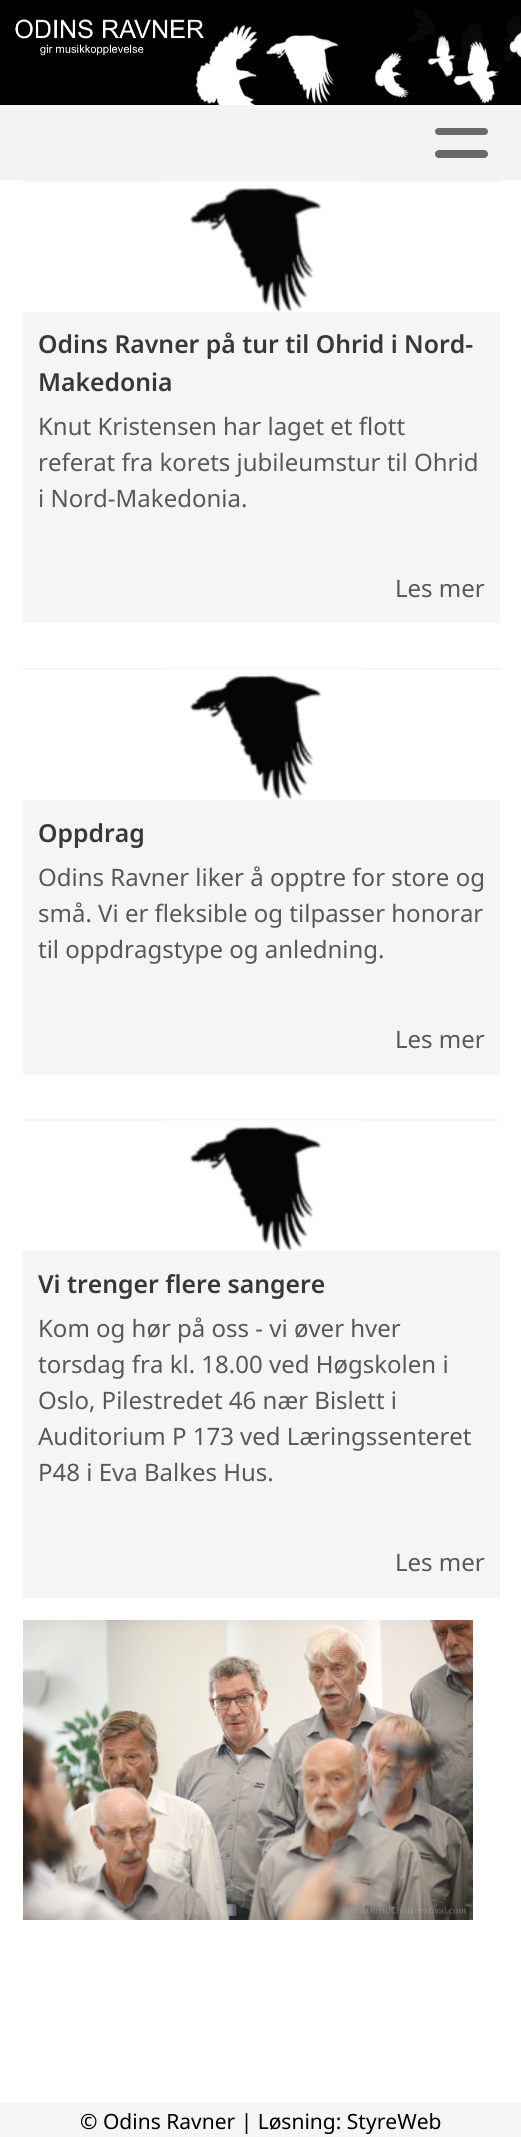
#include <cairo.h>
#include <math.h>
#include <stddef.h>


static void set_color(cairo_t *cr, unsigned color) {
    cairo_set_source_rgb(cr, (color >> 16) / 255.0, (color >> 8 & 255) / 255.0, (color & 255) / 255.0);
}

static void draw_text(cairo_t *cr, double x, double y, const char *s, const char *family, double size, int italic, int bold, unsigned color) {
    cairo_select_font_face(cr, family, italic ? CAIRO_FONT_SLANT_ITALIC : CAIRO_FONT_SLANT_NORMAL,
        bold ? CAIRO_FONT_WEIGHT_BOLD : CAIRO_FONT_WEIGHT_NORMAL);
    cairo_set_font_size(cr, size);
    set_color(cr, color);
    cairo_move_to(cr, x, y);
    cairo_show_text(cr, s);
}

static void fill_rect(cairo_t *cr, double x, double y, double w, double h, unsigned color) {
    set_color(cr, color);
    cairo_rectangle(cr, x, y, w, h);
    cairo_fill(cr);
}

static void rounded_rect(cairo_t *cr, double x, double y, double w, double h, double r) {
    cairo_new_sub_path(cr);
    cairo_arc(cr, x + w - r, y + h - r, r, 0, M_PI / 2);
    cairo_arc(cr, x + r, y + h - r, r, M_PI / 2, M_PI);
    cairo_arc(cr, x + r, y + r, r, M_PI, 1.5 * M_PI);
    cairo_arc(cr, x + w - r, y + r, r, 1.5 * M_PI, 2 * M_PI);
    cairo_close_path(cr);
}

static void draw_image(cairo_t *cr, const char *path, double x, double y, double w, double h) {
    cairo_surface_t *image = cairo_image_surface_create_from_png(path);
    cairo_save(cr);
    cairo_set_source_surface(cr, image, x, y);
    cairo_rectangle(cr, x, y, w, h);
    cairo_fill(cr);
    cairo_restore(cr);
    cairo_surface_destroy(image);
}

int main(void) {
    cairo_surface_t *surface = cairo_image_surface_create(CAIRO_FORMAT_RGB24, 521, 2137);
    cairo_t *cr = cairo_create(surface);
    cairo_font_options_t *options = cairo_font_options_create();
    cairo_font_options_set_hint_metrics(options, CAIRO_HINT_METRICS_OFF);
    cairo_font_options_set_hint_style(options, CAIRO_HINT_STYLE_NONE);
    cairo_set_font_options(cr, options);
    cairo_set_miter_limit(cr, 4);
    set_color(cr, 0xFFFFFF);
    cairo_paint(cr);
    draw_image(cr, "assets/img1.png", 0, 0, 521, 105);
    fill_rect(cr, 0, 105, 521, 75, 0xF3F3F3);
    set_color(cr, 0x696969);
    rounded_rect(cr, 435, 128, 53, 7, 3.5);
    cairo_fill(cr);
    rounded_rect(cr, 435, 150, 53, 8, 4);
    cairo_fill(cr);
    fill_rect(cr, 23, 180, 477, 2, 0xF5F5F5);
    fill_rect(cr, 23, 312, 477, 311, 0xF5F5F5);
    draw_image(cr, "assets/img2.png", 161, 181, 200, 131);
    draw_text(cr, 38, 353, "Odins Ravner på tur til Ohrid i Nord-", "Noto Sans SemiBold", 24.75, 0, 0, 0x383838);
    draw_text(cr, 38, 391, "Makedonia", "Noto Sans SemiBold", 24.75, 0, 0, 0x383838);
    draw_text(cr, 38, 435, "Knut Kristensen har laget et flott", "Noto Sans", 24, 0, 0, 0x585858);
    draw_text(cr, 38, 471, "referat fra korets jubileumstur til Ohrid", "Noto Sans", 24, 0, 0, 0x585858);
    draw_text(cr, 38, 507, "i Nord-Makedonia.", "Noto Sans", 24, 0, 0, 0x585858);
    draw_text(cr, 395, 597, "Les mer", "Noto Sans", 24, 0, 0, 0x585858);
    fill_rect(cr, 23, 668, 477, 2, 0xF5F5F5);
    fill_rect(cr, 23, 800, 477, 275, 0xF5F5F5);
    draw_image(cr, "assets/img3.png", 160, 669, 202, 131);
    draw_text(cr, 38, 842, "Oppdrag", "Noto Sans SemiBold", 24.75, 0, 0, 0x383838);
    draw_text(cr, 38, 886, "Odins Ravner liker å opptre for store og", "Noto Sans", 24, 0, 0, 0x585858);
    draw_text(cr, 38, 922, "små. Vi er fleksible og tilpasser honorar", "Noto Sans", 24, 0, 0, 0x585858);
    draw_text(cr, 38, 958, "til oppdragstype og anledning.", "Noto Sans", 24, 0, 0, 0x585858);
    draw_text(cr, 395, 1048, "Les mer", "Noto Sans", 24, 0, 0, 0x585858);
    fill_rect(cr, 23, 1119, 477, 2, 0xF5F5F5);
    fill_rect(cr, 23, 1251, 477, 347, 0xF5F5F5);
    draw_image(cr, "assets/img2.png", 161, 1120, 200, 131);
    draw_text(cr, 38, 1293, "Vi trenger flere sangere", "Noto Sans SemiBold", 24.75, 0, 0, 0x383838);
    draw_text(cr, 38, 1337, "Kom og hør på oss - vi øver hver", "Noto Sans", 24, 0, 0, 0x585858);
    draw_text(cr, 38, 1373, "torsdag fra kl. 18.00 ved Høgskolen i", "Noto Sans", 24, 0, 0, 0x585858);
    draw_text(cr, 38, 1409, "Oslo, Pilestredet 46 nær Bislett i", "Noto Sans", 24, 0, 0, 0x585858);
    draw_text(cr, 38, 1445, "Auditorium P 173 ved Læringssenteret", "Noto Sans", 24, 0, 0, 0x585858);
    draw_text(cr, 38, 1481, "P48 i Eva Balkes Hus.", "Noto Sans", 24, 0, 0, 0x585858);
    draw_text(cr, 395, 1571, "Les mer", "Noto Sans", 24, 0, 0, 0x585858);
    draw_image(cr, "assets/img4.png", 23, 1620, 450, 300);
    fill_rect(cr, 0, 2103, 521, 34, 0xF5F5F5);
    draw_text(cr, 80, 2129, "© Odins Ravner | Løsning: StyreWeb", "Noto Sans", 21, 0, 0, 0x000000);
    cairo_surface_write_to_png(surface, "output.png");
    cairo_font_options_destroy(options);
    cairo_destroy(cr);
    cairo_surface_destroy(surface);
    return 0;
}
